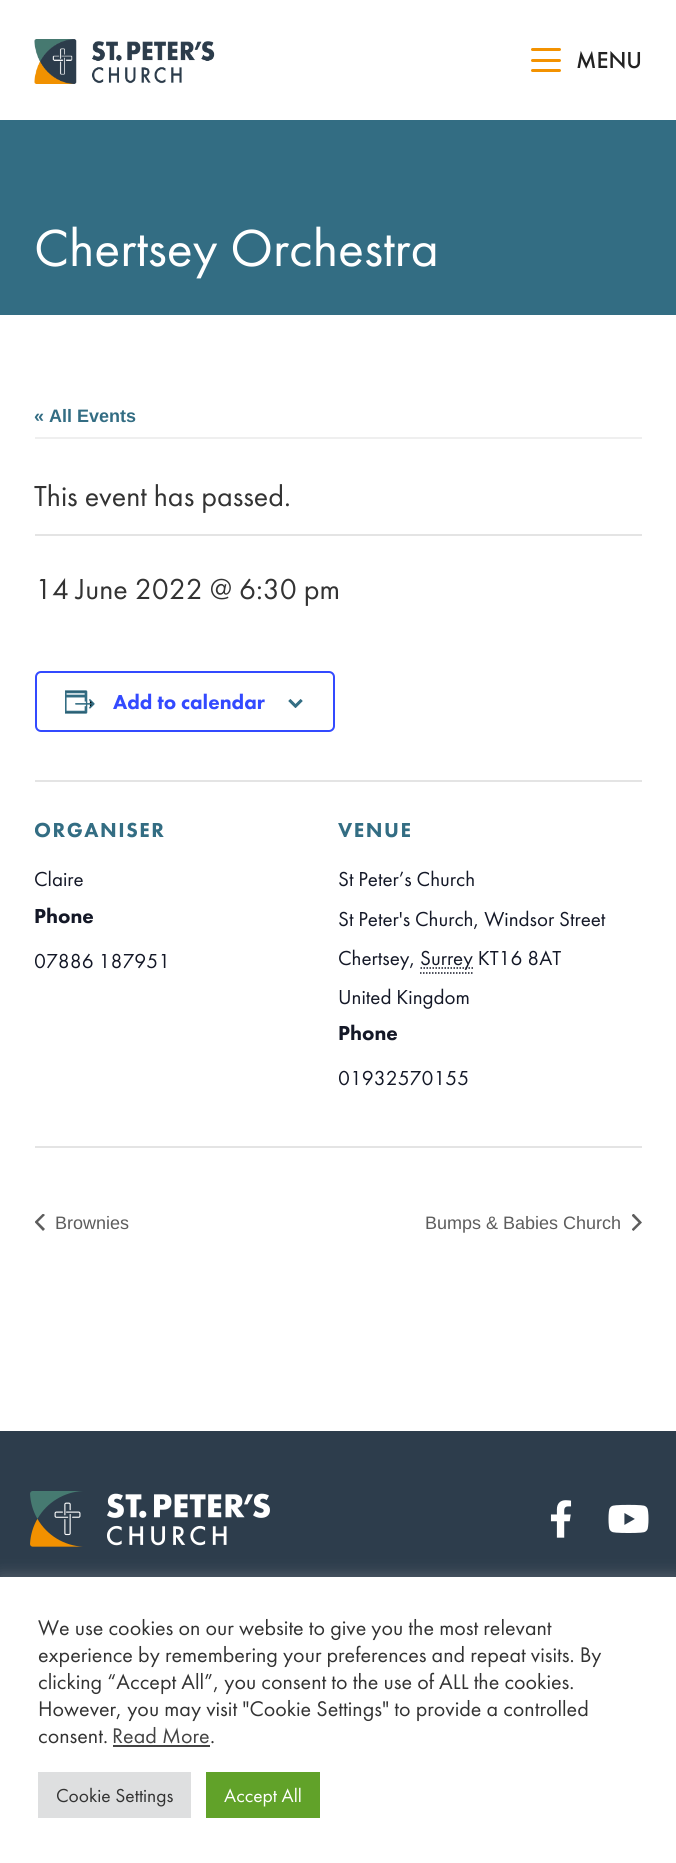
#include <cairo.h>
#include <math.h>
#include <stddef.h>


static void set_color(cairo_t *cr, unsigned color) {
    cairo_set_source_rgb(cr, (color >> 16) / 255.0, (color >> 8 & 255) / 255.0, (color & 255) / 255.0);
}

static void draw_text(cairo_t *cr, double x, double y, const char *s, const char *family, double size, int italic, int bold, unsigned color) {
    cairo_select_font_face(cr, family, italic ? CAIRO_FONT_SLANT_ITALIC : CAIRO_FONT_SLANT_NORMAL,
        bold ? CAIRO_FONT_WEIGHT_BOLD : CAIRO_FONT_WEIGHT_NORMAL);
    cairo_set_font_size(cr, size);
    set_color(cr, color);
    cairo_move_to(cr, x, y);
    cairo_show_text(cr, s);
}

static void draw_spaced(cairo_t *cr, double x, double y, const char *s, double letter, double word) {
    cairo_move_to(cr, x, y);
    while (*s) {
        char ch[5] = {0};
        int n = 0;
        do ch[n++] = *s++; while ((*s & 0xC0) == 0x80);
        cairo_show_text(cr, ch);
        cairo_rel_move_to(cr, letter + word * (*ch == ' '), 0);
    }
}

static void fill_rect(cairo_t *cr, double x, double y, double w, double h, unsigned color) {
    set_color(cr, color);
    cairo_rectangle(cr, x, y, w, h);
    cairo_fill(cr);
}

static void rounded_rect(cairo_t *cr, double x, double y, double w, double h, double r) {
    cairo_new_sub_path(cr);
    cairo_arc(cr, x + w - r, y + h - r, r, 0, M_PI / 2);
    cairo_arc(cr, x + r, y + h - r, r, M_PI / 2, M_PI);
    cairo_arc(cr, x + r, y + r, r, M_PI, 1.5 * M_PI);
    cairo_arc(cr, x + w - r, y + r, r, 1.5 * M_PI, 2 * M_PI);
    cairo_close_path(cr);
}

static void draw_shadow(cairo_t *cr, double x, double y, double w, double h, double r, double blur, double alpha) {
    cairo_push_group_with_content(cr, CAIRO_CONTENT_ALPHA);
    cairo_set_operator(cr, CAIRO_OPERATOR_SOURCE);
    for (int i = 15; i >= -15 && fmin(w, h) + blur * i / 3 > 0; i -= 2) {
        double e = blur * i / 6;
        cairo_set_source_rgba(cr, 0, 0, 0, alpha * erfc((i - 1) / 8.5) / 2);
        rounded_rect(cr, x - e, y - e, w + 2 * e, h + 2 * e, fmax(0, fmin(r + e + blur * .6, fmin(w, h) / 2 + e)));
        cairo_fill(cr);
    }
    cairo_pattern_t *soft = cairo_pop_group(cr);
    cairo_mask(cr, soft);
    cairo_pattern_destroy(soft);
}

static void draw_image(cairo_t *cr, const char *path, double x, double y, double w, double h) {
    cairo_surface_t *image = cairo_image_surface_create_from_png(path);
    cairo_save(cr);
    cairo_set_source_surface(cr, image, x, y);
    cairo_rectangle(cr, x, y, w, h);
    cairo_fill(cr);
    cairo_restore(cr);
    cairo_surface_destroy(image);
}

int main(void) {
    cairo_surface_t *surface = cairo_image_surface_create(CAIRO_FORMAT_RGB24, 676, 1863);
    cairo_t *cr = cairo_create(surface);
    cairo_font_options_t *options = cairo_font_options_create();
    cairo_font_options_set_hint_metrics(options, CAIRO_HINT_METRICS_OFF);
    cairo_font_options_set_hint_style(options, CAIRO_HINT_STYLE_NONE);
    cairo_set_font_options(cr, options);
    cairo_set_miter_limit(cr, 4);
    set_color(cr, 0xFFFFFF);
    cairo_paint(cr);
    draw_image(cr, "assets/img1.png", 34, 39, 181, 45);
    set_color(cr, 0xF39200);
    rounded_rect(cr, 531, 48, 30, 3, 1.5);
    cairo_fill(cr);
    rounded_rect(cr, 531, 59, 30, 3, 1.5);
    cairo_fill(cr);
    rounded_rect(cr, 531, 69, 30, 3, 1.5);
    cairo_fill(cr);
    draw_text(cr, 576, 68, "MENU", "Futura PT Medium", 24, 0, 0, 0x222222);
    fill_rect(cr, 0, 120, 676, 195, 0x336D83);
    draw_text(cr, 34, 266, "Chertsey Orchestra", "Futura PT", 54, 0, 0, 0xFFFFFF);
    fill_rect(cr, 35, 437, 607, 2, 0xEFEFEF);
    draw_text(cr, 34, 422, "« All Events", "Liberation Sans", 18, 0, 1, 0x336D83);
    fill_rect(cr, 35, 534, 607, 2, 0xE4E4E4);
    draw_text(cr, 34, 506, "This event has passed.", "Futura PT", 30, 0, 0, 0x333333);
    draw_text(cr, 35, 599, "14 June 2022 @ 6:30 pm", "Futura PT", 30, 0, 0, 0x333333);
    rounded_rect(cr, 36, 672, 298, 59, 5);
    set_color(cr, 0x334AFF);
    cairo_stroke(cr);
    draw_image(cr, "assets/img2.png", 65, 690, 30, 24);
    draw_text(cr, 113, 709, "Add to calendar", "Futura PT Black", 21, 0, 0, 0x334AFF);
    draw_image(cr, "assets/img3.png", 288, 699, 15, 9);
    fill_rect(cr, 35, 780, 607, 2, 0xE4E4E4);
    cairo_save(cr);
    cairo_rectangle(cr, 35, 623, 607, 493);
    cairo_clip(cr);
    set_color(cr, 0x336D83);
    draw_spaced(cr, 34, 837, "ORGANISER", 1.5, 0);
    cairo_restore(cr);
    draw_text(cr, 34, 886, "Claire", "Futura PT", 21, 0, 0, 0x141827);
    draw_text(cr, 34, 923, "Phone", "Futura PT Black", 21, 0, 0, 0x141827);
    cairo_save(cr);
    cairo_rectangle(cr, 35, 623, 607, 493);
    cairo_clip(cr);
    draw_text(cr, 34, 968, "07886 187951", "Futura PT", 21, 0, 0, 0x141827);
    cairo_restore(cr);
    set_color(cr, 0x336D83);
    draw_spaced(cr, 338, 837, "VENUE", 1.5, 0);
    draw_text(cr, 338, 886, "St Peter’s Church", "Futura PT", 21, 0, 0, 0x141827);
    draw_text(cr, 338, 926, "St Peter's Church, Windsor Street", "Futura PT", 21, 0, 0, 0x141827);
    draw_text(cr, 338, 965, "Chertsey,", "Futura PT", 21, 0, 0, 0x141827);
    cairo_new_path(cr);
    cairo_move_to(cr, 420, 973);
    cairo_line_to(cr, 472.5, 973);
    cairo_move_to(cr, 420.5, 968);
    cairo_line_to(cr, 473, 968);
    cairo_set_line_width(cr, 1.5);
    cairo_set_dash(cr, (double[]){1.5, 1.5}, 2, 0);
    cairo_stroke(cr);
    draw_text(cr, 420, 965, "Surrey KT16 8AT", "Futura PT", 21, 0, 0, 0x141827);
    draw_text(cr, 338, 1004, "United Kingdom", "Futura PT", 21, 0, 0, 0x141827);
    draw_text(cr, 338, 1040, "Phone", "Futura PT Black", 21, 0, 0, 0x141827);
    draw_text(cr, 338, 1085, "01932570155", "Futura PT", 21, 0, 0, 0x141827);
    fill_rect(cr, 35, 1146, 607, 2, 0xE4E4E4);
    cairo_save(cr);
    cairo_rectangle(cr, 35, 1214, 10, 18);
    cairo_clip(cr);
    set_color(cr, 0x5D5D5D);
    cairo_new_path(cr);
    cairo_move_to(cr, 45, 1229);
    cairo_line_to(cr, 43, 1231);
    cairo_line_to(cr, 34.5, 1222);
    cairo_line_to(cr, 43, 1213.5);
    cairo_line_to(cr, 45, 1215);
    cairo_line_to(cr, 38, 1222);
    cairo_close_path(cr);
    cairo_fill(cr);
    cairo_restore(cr);
    draw_text(cr, 55, 1229, "Brownies", "Liberation Sans", 18, 0, 0, 0x5D5D5D);
    draw_text(cr, 425, 1229, "Bumps & Babies Church", "Liberation Sans", 18, 0, 0, 0x5D5D5D);
    cairo_save(cr);
    cairo_rectangle(cr, 632, 1214, 10, 18);
    cairo_clip(cr);
    cairo_new_path(cr);
    cairo_move_to(cr, 631.5, 1215.5);
    cairo_line_to(cr, 633.5, 1213.5);
    cairo_line_to(cr, 642, 1222.5);
    cairo_line_to(cr, 633.5, 1231);
    cairo_line_to(cr, 631.5, 1229.5);
    cairo_line_to(cr, 638.5, 1222.5);
    cairo_close_path(cr);
    cairo_fill(cr);
    cairo_restore(cr);
    fill_rect(cr, 0, 1431, 676, 146, 0x2D3D4C);
    draw_image(cr, "assets/img4.png", 30, 1491, 240, 56);
    draw_image(cr, "assets/img5.png", 550, 1500, 22, 38);
    draw_image(cr, "assets/img6.png", 608, 1504, 41, 29);
    set_color(cr, 0xACABAB);
    draw_shadow(cr, 0, 1575, 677, 287, 0, 7.5, 0.3);
    fill_rect(cr, 0, 1577, 676, 286, 0xFFFFFF);
    draw_text(cr, 38, 1635, "We use cookies on our website to give you the most relevant", "Futura PT", 22, 0, 0, 0x333333);
    draw_text(cr, 38, 1662, "experience by remembering your preferences and repeat visits. By", "Futura PT", 22, 0, 0, 0x333333);
    draw_text(cr, 38, 1689, "clicking “Accept All”, you consent to the use of ALL the cookies.", "Futura PT", 22, 0, 0, 0x333333);
    draw_text(cr, 38, 1716, "However, you may visit \"Cookie Settings\" to provide a controlled", "Futura PT", 22, 0, 0, 0x333333);
    draw_text(cr, 38, 1743, "consent.", "Futura PT", 22, 0, 0, 0x333333);
    draw_text(cr, 112, 1743, "Read More", "Futura PT", 22, 0, 0, 0x444444);
    fill_rect(cr, 113, 1745, 97, 2, 0x444444);
    draw_text(cr, 210, 1743, ".", "Futura PT", 22, 0, 0, 0x333333);
    fill_rect(cr, 38, 1772, 153, 46, 0xDEDFE0);
    draw_text(cr, 56, 1802, "Cookie Settings", "Futura PT", 19.5, 0, 0, 0x333333);
    fill_rect(cr, 206, 1772, 114, 46, 0x61A229);
    draw_text(cr, 224, 1802, "Accept All", "Futura PT", 19.5, 0, 0, 0xFFFFFF);
    cairo_surface_write_to_png(surface, "output.png");
    cairo_font_options_destroy(options);
    cairo_destroy(cr);
    cairo_surface_destroy(surface);
    return 0;
}
